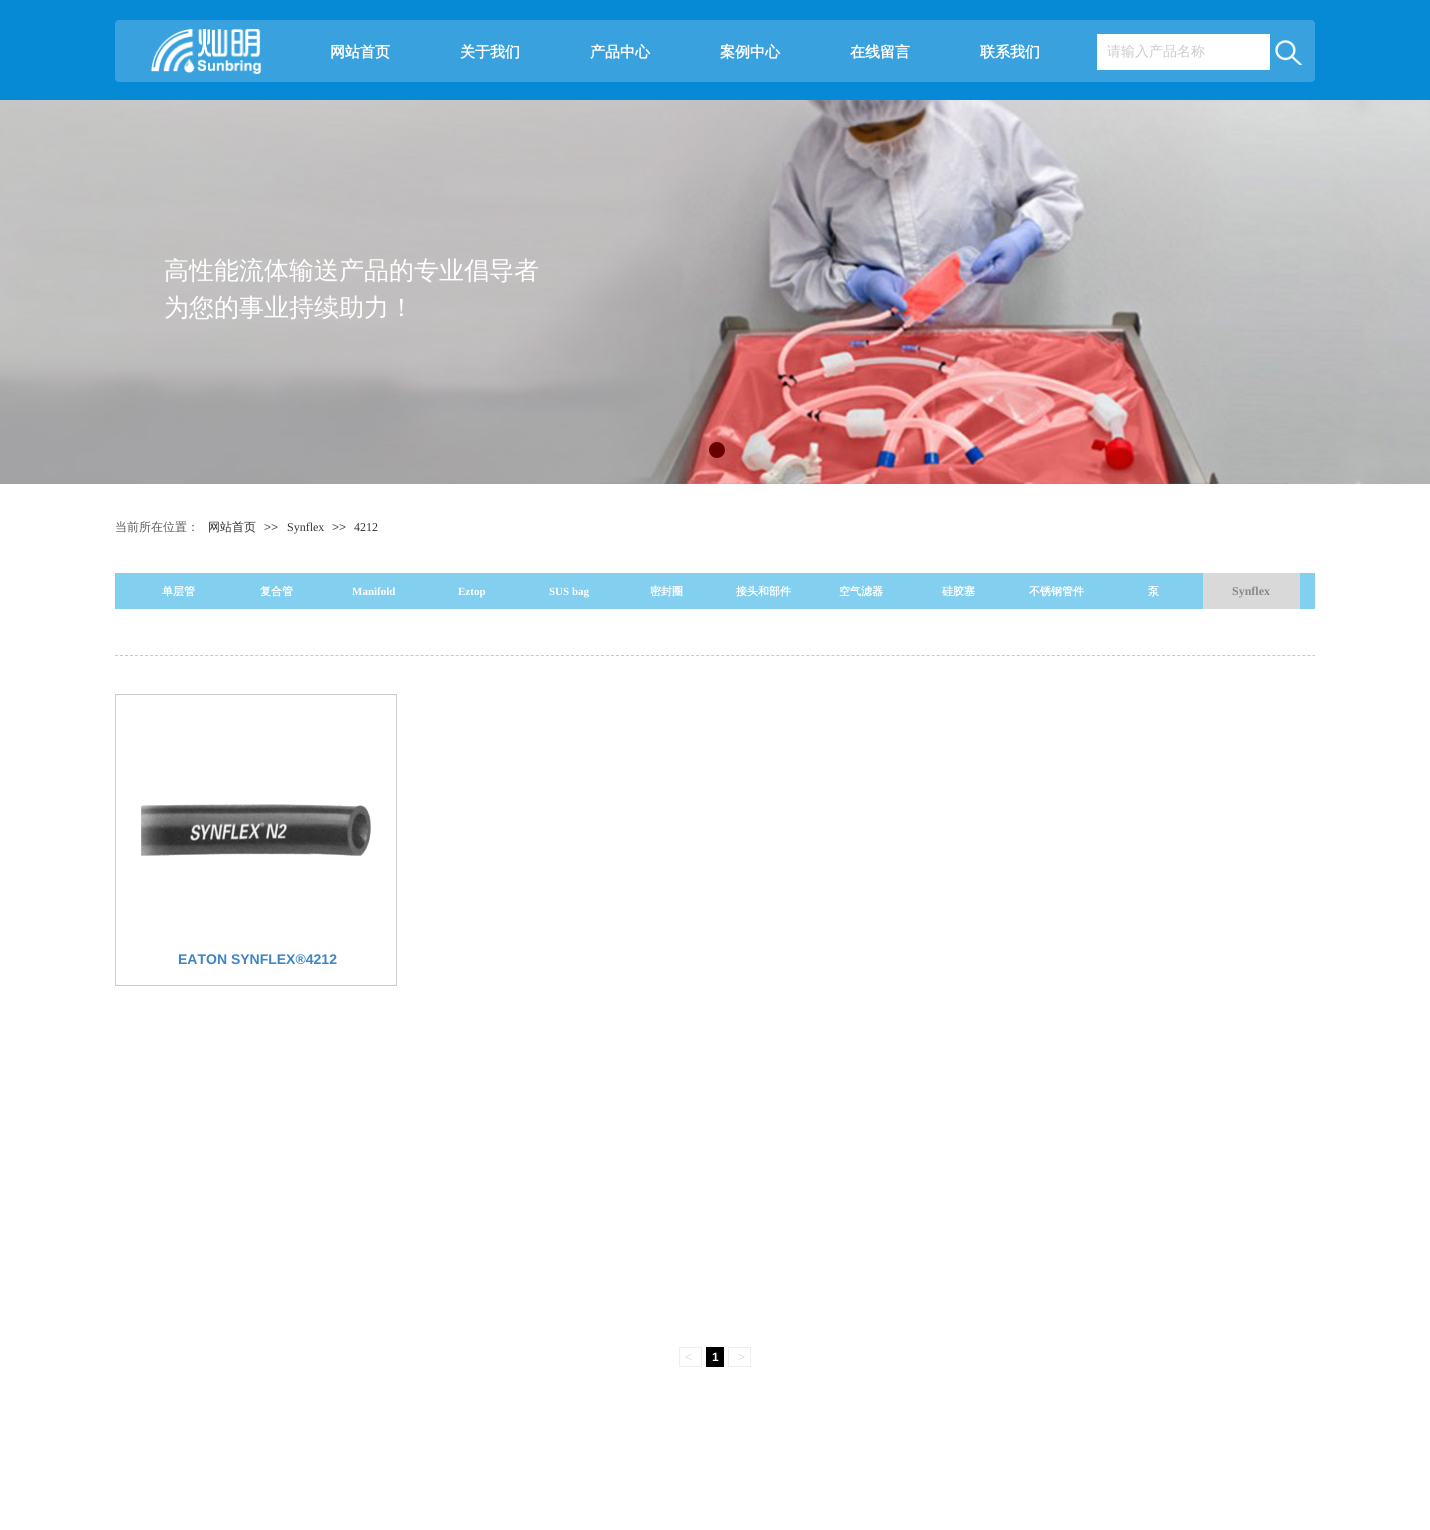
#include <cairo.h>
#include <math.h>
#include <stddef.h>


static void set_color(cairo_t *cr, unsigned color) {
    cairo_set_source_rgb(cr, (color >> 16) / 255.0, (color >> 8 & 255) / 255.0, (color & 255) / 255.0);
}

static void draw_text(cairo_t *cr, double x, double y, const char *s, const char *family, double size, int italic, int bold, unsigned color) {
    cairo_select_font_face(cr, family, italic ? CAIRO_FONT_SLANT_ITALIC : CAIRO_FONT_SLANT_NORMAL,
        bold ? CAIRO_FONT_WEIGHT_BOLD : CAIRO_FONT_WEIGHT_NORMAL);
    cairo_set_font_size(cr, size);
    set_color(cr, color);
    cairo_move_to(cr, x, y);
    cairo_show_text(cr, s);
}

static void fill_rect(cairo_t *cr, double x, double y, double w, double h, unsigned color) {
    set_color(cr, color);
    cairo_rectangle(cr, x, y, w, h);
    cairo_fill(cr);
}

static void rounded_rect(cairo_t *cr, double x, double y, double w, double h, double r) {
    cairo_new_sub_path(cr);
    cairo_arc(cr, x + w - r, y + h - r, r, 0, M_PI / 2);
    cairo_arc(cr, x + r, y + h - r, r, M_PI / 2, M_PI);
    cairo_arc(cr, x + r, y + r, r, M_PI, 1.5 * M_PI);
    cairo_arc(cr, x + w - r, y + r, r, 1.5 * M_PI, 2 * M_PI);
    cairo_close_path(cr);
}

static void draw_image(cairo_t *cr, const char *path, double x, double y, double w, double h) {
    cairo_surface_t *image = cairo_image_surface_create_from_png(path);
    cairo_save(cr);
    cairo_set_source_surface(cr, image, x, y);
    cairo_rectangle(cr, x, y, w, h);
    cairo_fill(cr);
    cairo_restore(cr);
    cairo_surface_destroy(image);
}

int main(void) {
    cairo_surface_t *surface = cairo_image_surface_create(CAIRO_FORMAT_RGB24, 1430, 1530);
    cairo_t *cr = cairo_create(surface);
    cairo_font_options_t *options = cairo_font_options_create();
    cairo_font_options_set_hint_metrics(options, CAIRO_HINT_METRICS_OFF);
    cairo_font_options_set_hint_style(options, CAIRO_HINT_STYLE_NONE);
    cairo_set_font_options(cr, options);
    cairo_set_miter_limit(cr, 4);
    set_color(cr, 0xFFFFFF);
    cairo_paint(cr);
    fill_rect(cr, 0, 0, 1430, 100, 0x078AD6);
    set_color(cr, 0x39A1DE);
    rounded_rect(cr, 115, 20, 1200, 62, 4);
    cairo_fill(cr);
    draw_image(cr, "assets/img1.png", 151, 29, 110, 45);
    draw_text(cr, 330, 57, "网站首页", "WenQuanYi Zen Hei", 15, 0, 1, 0xFFFFFF);
    draw_text(cr, 460, 57, "关于我们", "WenQuanYi Zen Hei", 15, 0, 1, 0xFFFFFF);
    draw_text(cr, 590, 57, "产品中心", "WenQuanYi Zen Hei", 15, 0, 1, 0xFFFFFF);
    draw_text(cr, 720, 57, "案例中心", "WenQuanYi Zen Hei", 15, 0, 1, 0xFFFFFF);
    draw_text(cr, 850, 57, "在线留言", "WenQuanYi Zen Hei", 15, 0, 1, 0xFFFFFF);
    draw_text(cr, 980, 57, "联系我们", "WenQuanYi Zen Hei", 15, 0, 1, 0xFFFFFF);
    fill_rect(cr, 1097, 34, 173, 36, 0xFFFFFF);
    draw_text(cr, 1107, 56, "请输入产品名称", "WenQuanYi Zen Hei Medium", 14, 0, 0, 0xCCCCCC);
    draw_image(cr, "assets/img2.png", 1275, 40, 27, 25);
    draw_image(cr, "assets/img3.png", 0, 100, 1430, 384);
    set_color(cr, 0x660000);
    cairo_arc(cr, 717, 450, 7, 0, 2 * M_PI);
    cairo_fill_preserve(cr);
    cairo_stroke(cr);
    draw_text(cr, 164, 279, "高性能流体输送产品的专业倡导者", "WenQuanYi Zen Hei Medium", 25, 0, 0, 0xFFFFFF);
    draw_text(cr, 164, 316, "为您的事业持续助力！", "WenQuanYi Zen Hei Medium", 25, 0, 0, 0xFFFFFF);
    draw_text(cr, 115, 531, "当前所在位置：", "WenQuanYi Zen Hei Medium", 12, 0, 0, 0x5A5A5A);
    draw_text(cr, 208, 531, "网站首页", "WenQuanYi Zen Hei Medium", 12, 0, 0, 0x333333);
    draw_text(cr, 264, 531, ">>", "Liberation Sans", 12, 0, 0, 0x5A5A5A);
    draw_text(cr, 287, 531, "Synflex", "Liberation Serif", 12, 0, 0, 0x333333);
    draw_text(cr, 332, 531, ">>", "Liberation Sans", 12, 0, 0, 0x5A5A5A);
    draw_text(cr, 354, 531, "4212", "Liberation Serif", 12, 0, 0, 0x333333);
    fill_rect(cr, 115, 573, 1200, 36, 0x82CFEF);
    draw_text(cr, 162, 595, "单层管", "WenQuanYi Zen Hei", 11, 0, 1, 0xFFFFFF);
    draw_text(cr, 260, 595, "复合管", "WenQuanYi Zen Hei", 11, 0, 1, 0xFFFFFF);
    draw_text(cr, 352, 595, "Manifold", "Liberation Serif", 11, 0, 1, 0xFFFFFF);
    draw_text(cr, 458, 595, "Eztop", "Liberation Serif", 11, 0, 1, 0xFFFFFF);
    draw_text(cr, 549, 595, "SUS bag", "Liberation Serif", 11, 0, 1, 0xFFFFFF);
    draw_text(cr, 650, 595, "密封圈", "WenQuanYi Zen Hei", 11, 0, 1, 0xFFFFFF);
    draw_text(cr, 736, 595, "接头和部件", "WenQuanYi Zen Hei", 11, 0, 1, 0xFFFFFF);
    draw_text(cr, 839, 595, "空气滤器", "WenQuanYi Zen Hei", 11, 0, 1, 0xFFFFFF);
    draw_text(cr, 942, 595, "硅胶塞", "WenQuanYi Zen Hei", 11, 0, 1, 0xFFFFFF);
    draw_text(cr, 1029, 595, "不锈钢管件", "WenQuanYi Zen Hei", 11, 0, 1, 0xFFFFFF);
    draw_text(cr, 1148, 595, "泵", "WenQuanYi Zen Hei", 11, 0, 1, 0xFFFFFF);
    fill_rect(cr, 1203, 573, 97, 36, 0xD9D9D9);
    draw_text(cr, 1232, 595, "Synflex", "Liberation Serif", 12, 0, 1, 0x898989);
    cairo_new_path(cr);
    cairo_move_to(cr, 115, 655.5);
    cairo_line_to(cr, 1315, 655.5);
    set_color(cr, 0xC9C9C9);
    cairo_set_line_width(cr, 1);
    cairo_set_dash(cr, (double[]){3, 2.01}, 2, 0);
    cairo_stroke(cr);
    cairo_rectangle(cr, 115.5, 694.5, 281, 291);
    set_color(cr, 0xCCCCCC);
    cairo_set_dash(cr, NULL, 0, 0);
    cairo_stroke(cr);
    draw_image(cr, "assets/img4.png", 141, 804, 230, 52);
    draw_text(cr, 178, 964, "EATON SYNFLEX®4212", "Liberation Sans", 14, 0, 1, 0x3D85C6);
    cairo_rectangle(cr, 679.5, 1347.5, 22, 19);
    set_color(cr, 0xEEEEEE);
    cairo_stroke(cr);
    draw_text(cr, 685, 1361, "<", "Liberation Sans", 12, 0, 0, 0xDDDDDD);
    fill_rect(cr, 706, 1347, 18, 20, 0x000000);
    draw_text(cr, 712, 1361, "1", "Liberation Sans", 12, 0, 1, 0xFFFFFF);
    cairo_rectangle(cr, 728.5, 1347.5, 22, 19);
    set_color(cr, 0xEEEEEE);
    cairo_stroke(cr);
    draw_text(cr, 738, 1361, ">", "Liberation Sans", 12, 0, 0, 0xDDDDDD);
    cairo_surface_write_to_png(surface, "output.png");
    cairo_font_options_destroy(options);
    cairo_destroy(cr);
    cairo_surface_destroy(surface);
    return 0;
}
